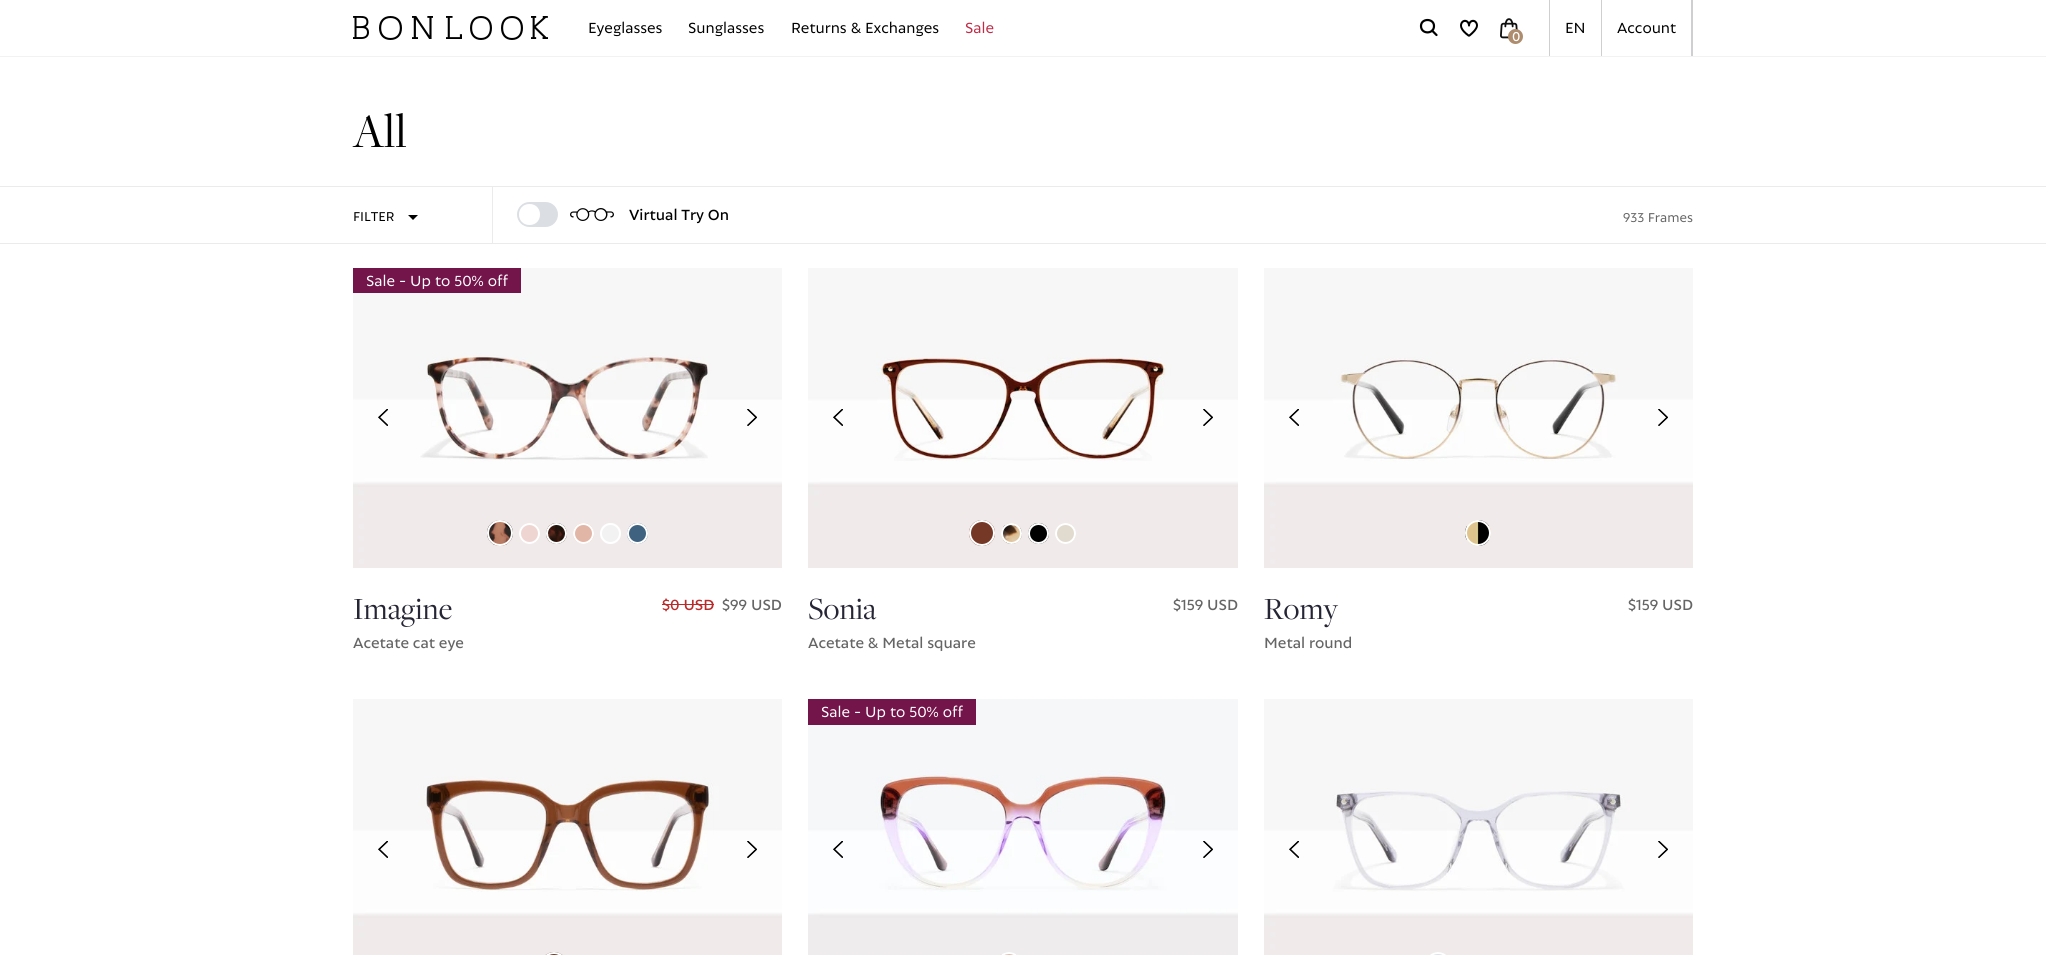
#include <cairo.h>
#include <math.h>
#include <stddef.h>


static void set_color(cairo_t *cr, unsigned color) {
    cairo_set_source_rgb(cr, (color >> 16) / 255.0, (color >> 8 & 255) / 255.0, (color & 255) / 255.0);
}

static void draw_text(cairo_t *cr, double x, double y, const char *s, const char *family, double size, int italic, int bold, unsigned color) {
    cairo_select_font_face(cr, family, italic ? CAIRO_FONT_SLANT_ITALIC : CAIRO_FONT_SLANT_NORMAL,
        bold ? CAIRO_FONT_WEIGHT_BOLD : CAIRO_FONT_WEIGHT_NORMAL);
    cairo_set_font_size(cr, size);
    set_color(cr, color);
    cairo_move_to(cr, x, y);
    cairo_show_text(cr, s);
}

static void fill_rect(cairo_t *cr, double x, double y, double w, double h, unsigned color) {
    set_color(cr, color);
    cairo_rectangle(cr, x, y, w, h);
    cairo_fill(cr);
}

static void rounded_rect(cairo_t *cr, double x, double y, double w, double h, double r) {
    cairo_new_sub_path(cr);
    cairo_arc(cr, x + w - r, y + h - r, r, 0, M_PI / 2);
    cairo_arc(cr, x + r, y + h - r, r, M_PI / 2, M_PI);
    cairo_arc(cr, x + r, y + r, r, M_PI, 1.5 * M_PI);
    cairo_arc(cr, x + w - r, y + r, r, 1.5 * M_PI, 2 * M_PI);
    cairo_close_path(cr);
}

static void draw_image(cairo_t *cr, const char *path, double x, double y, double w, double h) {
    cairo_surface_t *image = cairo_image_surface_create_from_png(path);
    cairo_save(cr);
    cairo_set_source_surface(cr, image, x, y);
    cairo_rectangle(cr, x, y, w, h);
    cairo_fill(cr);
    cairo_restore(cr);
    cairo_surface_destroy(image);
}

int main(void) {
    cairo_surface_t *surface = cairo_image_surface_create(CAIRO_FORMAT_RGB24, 2046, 955);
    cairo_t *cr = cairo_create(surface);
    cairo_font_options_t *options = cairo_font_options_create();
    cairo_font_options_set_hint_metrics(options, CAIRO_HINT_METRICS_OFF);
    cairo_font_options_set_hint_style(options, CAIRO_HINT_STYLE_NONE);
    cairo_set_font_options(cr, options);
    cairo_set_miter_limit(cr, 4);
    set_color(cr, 0xFFFFFF);
    cairo_paint(cr);
    fill_rect(cr, 0, 56, 2046, 1, 0xF2F2F2);
    draw_image(cr, "assets/img1.png", 353, 16, 195, 24);
    draw_text(cr, 588, 33, "Eyeglasses", "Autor", 16, 0, 0, 0x000000);
    draw_text(cr, 688, 33, "Sunglasses", "Autor", 16, 0, 0, 0x000000);
    draw_text(cr, 791, 33, "Returns & Exchanges", "Autor", 16, 0, 0, 0x000000);
    draw_text(cr, 965, 33, "Sale", "Autor", 16, 0, 0, 0xC02C47);
    fill_rect(cr, 1549, 0, 1, 56, 0xCFCFD2);
    draw_text(cr, 1565, 33, "EN", "Autor", 16, 0, 0, 0x000000);
    fill_rect(cr, 1601, 0, 1, 56, 0xCFCFD2);
    draw_text(cr, 1617, 33, "Account", "Autor", 16, 0, 0, 0x000000);
    fill_rect(cr, 1691, 0, 2, 56, 0xCFCFD2);
    cairo_new_path(cr);
    cairo_move_to(cr, 1432, 30.5);
    cairo_line_to(cr, 1436.5, 35);
    cairo_move_to(cr, 1434, 26);
    cairo_curve_to(cr, 1434, 34.5, 1421, 34.5, 1421, 26);
    cairo_curve_to(cr, 1421, 18, 1434, 18, 1434, 26);
    cairo_close_path(cr);
    set_color(cr, 0x000000);
    cairo_set_line_width(cr, 2.2);
    cairo_set_line_cap(cr, CAIRO_LINE_CAP_ROUND);
    cairo_set_line_join(cr, CAIRO_LINE_JOIN_ROUND);
    cairo_stroke(cr);
    draw_image(cr, "assets/img2.png", 1460, 19, 18, 18);
    draw_image(cr, "assets/img3.png", 1500, 18, 18, 21);
    set_color(cr, 0xAE8C6E);
    cairo_arc(cr, 1515.5, 36.5, 7.5, 0, 2 * M_PI);
    cairo_fill(cr);
    draw_text(cr, 1512, 41, "0", "Autor Medium", 14, 0, 0, 0xFFFFFF);
    draw_text(cr, 353, 147, "All", "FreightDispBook", 50, 0, 0, 0x000000);
    fill_rect(cr, 0, 186, 2046, 1, 0xEBEBEB);
    fill_rect(cr, 0, 243, 2046, 1, 0xEBEBEB);
    fill_rect(cr, 492, 187, 1, 56, 0xEBEBEB);
    draw_text(cr, 353, 221, "FILTER", "Autor", 14, 0, 0, 0x000000);
    cairo_new_path(cr);
    cairo_move_to(cr, 418, 215);
    cairo_line_to(cr, 413, 220);
    cairo_line_to(cr, 408, 215);
    cairo_close_path(cr);
    cairo_fill(cr);
    set_color(cr, 0xDBDEE2);
    rounded_rect(cr, 517, 202, 41, 25, 12.5);
    cairo_fill(cr);
    set_color(cr, 0xFFFFFF);
    cairo_set_fill_rule(cr, CAIRO_FILL_RULE_EVEN_ODD);
    cairo_new_path(cr);
    cairo_move_to(cr, 529.5, 225);
    cairo_curve_to(cr, 543.5, 225, 543.5, 204, 529.5, 204);
    cairo_curve_to(cr, 515.5, 204, 515.5, 225, 529.5, 225);
    cairo_close_path(cr);
    cairo_fill(cr);
    draw_image(cr, "assets/img4.png", 570, 208, 44, 13);
    draw_text(cr, 629, 220, "Virtual Try On", "Autor Medium", 16, 0, 0, 0x000000);
    draw_text(cr, 1623, 222, "933 Frames", "Autor", 14, 0, 0, 0x656565);
    draw_image(cr, "assets/img5.png", 353, 268, 429, 300);
    fill_rect(cr, 353, 268, 168, 25, 0x73144A);
    draw_text(cr, 366, 286, "Sale - Up to 50% off", "Autor", 16, 0, 0, 0xFFFFFF);
    draw_image(cr, "assets/img6.png", 378, 409, 10, 17);
    draw_image(cr, "assets/img7.png", 747, 409, 10, 17);
    draw_image(cr, "assets/img8.png", 487, 520, 26, 26);
    cairo_arc(cr, 500, 533, 12, 0, 2 * M_PI);
    cairo_set_line_width(cr, 2);
    cairo_set_line_cap(cr, CAIRO_LINE_CAP_BUTT);
    cairo_set_line_join(cr, CAIRO_LINE_JOIN_MITER);
    cairo_stroke(cr);
    draw_image(cr, "assets/img9.png", 519, 523, 21, 21);
    cairo_arc(cr, 529.5, 533.5, 9.5, 0, 2 * M_PI);
    cairo_stroke(cr);
    draw_image(cr, "assets/img10.png", 546, 523, 21, 21);
    cairo_arc(cr, 556.5, 533.5, 9.5, 0, 2 * M_PI);
    cairo_stroke(cr);
    draw_image(cr, "assets/img11.png", 573, 523, 21, 21);
    cairo_arc(cr, 583.5, 533.5, 9.5, 0, 2 * M_PI);
    cairo_stroke(cr);
    set_color(cr, 0xF2F2F2);
    cairo_arc(cr, 610.5, 533.5, 10.5, 0, 2 * M_PI);
    cairo_fill(cr);
    fill_rect(cr, 601, 538, 1, 1, 0xF2F2F4);
    cairo_arc(cr, 610.5, 533.5, 9.5, 0, 2 * M_PI);
    set_color(cr, 0xFFFFFF);
    cairo_stroke(cr);
    draw_image(cr, "assets/img12.png", 627, 523, 21, 21);
    cairo_arc(cr, 637.5, 533.5, 9.5, 0, 2 * M_PI);
    cairo_stroke(cr);
    draw_text(cr, 353, 619, "Imagine", "FreightDispBook", 32, 0, 0, 0x252535);
    draw_text(cr, 353, 648, "Acetate cat eye", "Autor Medium", 16, 0, 0, 0x656565);
    draw_text(cr, 662, 610, "$0 USD", "Autor Medium", 16, 0, 0, 0xBA2C2C);
    fill_rect(cr, 662, 604, 52, 1, 0xBA2C2C);
    draw_text(cr, 722, 610, "$99 USD", "Autor Medium", 16, 0, 0, 0x656565);
    draw_image(cr, "assets/img13.png", 808, 268, 430, 300);
    draw_image(cr, "assets/img6.png", 833, 409, 10, 17);
    draw_image(cr, "assets/img7.png", 1203, 409, 10, 17);
    draw_image(cr, "assets/img14.png", 969, 520, 26, 26);
    cairo_arc(cr, 982, 533, 12, 0, 2 * M_PI);
    set_color(cr, 0xFFFFFF);
    cairo_stroke(cr);
    draw_image(cr, "assets/img15.png", 1001, 523, 21, 21);
    cairo_arc(cr, 1011.5, 533.5, 9.5, 0, 2 * M_PI);
    cairo_stroke(cr);
    draw_image(cr, "assets/img16.png", 1028, 523, 21, 21);
    cairo_arc(cr, 1038.5, 533.5, 9.5, 0, 2 * M_PI);
    cairo_stroke(cr);
    draw_image(cr, "assets/img17.png", 1055, 523, 21, 21);
    cairo_arc(cr, 1065.5, 533.5, 9.5, 0, 2 * M_PI);
    cairo_stroke(cr);
    draw_text(cr, 808, 619, "Sonia", "FreightDispBook", 32, 0, 0, 0x252535);
    draw_text(cr, 808, 648, "Acetate & Metal square", "Autor Medium", 16, 0, 0, 0x656565);
    draw_text(cr, 1173, 610, "$159 USD", "Autor Medium", 16, 0, 0, 0x656565);
    draw_image(cr, "assets/img18.png", 1264, 268, 429, 300);
    draw_image(cr, "assets/img6.png", 1289, 409, 10, 17);
    draw_image(cr, "assets/img7.png", 1658, 409, 10, 17);
    draw_image(cr, "assets/img19.png", 1465, 520, 26, 26);
    cairo_arc(cr, 1478, 533, 12, 0, 2 * M_PI);
    set_color(cr, 0xFFFFFF);
    cairo_stroke(cr);
    draw_text(cr, 1264, 619, "Romy", "FreightDispBook", 32, 0, 0, 0x252535);
    draw_text(cr, 1264, 648, "Metal round", "Autor Medium", 16, 0, 0, 0x656565);
    draw_text(cr, 1628, 610, "$159 USD", "Autor Medium", 16, 0, 0, 0x656565);
    draw_image(cr, "assets/img20.png", 353, 699, 429, 256);
    draw_image(cr, "assets/img6.png", 378, 841, 10, 17);
    draw_image(cr, "assets/img7.png", 747, 841, 10, 17);
    draw_image(cr, "assets/img21.png", 545, 952, 18, 3);
    rounded_rect(cr, 542, 953, 24, 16, 12);
    set_color(cr, 0xFFFFFF);
    cairo_stroke(cr);
    draw_image(cr, "assets/img22.png", 808, 699, 430, 256);
    fill_rect(cr, 808, 699, 168, 26, 0x73144A);
    draw_text(cr, 821, 717, "Sale - Up to 50% off", "Autor", 16, 0, 0, 0xFFFFFF);
    draw_image(cr, "assets/img23.png", 833, 841, 10, 17);
    draw_image(cr, "assets/img24.png", 1203, 841, 10, 17);
    draw_image(cr, "assets/img25.png", 1000, 952, 17, 3);
    rounded_rect(cr, 997, 953, 24, 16, 12);
    cairo_stroke(cr);
    draw_image(cr, "assets/img26.png", 1264, 699, 429, 256);
    draw_image(cr, "assets/img6.png", 1289, 841, 10, 17);
    draw_image(cr, "assets/img7.png", 1658, 841, 10, 17);
    draw_image(cr, "assets/img27.png", 1430, 952, 16, 3);
    rounded_rect(cr, 1426, 953, 24, 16, 12);
    cairo_stroke(cr);
    cairo_surface_write_to_png(surface, "output.png");
    cairo_font_options_destroy(options);
    cairo_destroy(cr);
    cairo_surface_destroy(surface);
    return 0;
}
